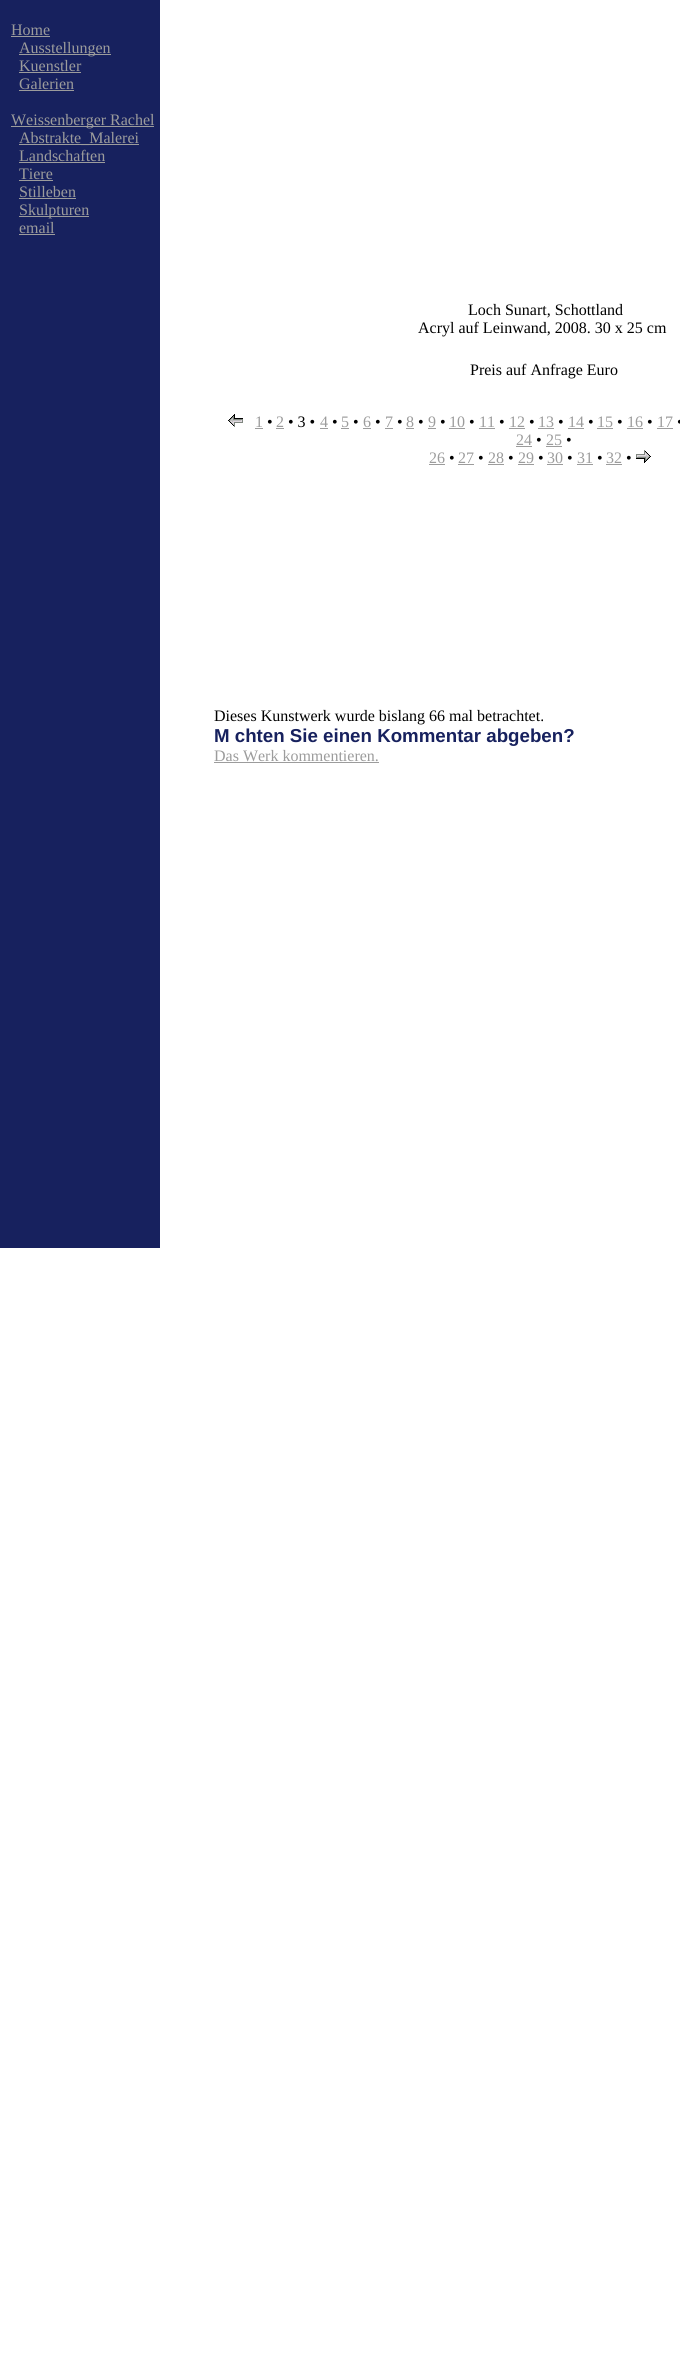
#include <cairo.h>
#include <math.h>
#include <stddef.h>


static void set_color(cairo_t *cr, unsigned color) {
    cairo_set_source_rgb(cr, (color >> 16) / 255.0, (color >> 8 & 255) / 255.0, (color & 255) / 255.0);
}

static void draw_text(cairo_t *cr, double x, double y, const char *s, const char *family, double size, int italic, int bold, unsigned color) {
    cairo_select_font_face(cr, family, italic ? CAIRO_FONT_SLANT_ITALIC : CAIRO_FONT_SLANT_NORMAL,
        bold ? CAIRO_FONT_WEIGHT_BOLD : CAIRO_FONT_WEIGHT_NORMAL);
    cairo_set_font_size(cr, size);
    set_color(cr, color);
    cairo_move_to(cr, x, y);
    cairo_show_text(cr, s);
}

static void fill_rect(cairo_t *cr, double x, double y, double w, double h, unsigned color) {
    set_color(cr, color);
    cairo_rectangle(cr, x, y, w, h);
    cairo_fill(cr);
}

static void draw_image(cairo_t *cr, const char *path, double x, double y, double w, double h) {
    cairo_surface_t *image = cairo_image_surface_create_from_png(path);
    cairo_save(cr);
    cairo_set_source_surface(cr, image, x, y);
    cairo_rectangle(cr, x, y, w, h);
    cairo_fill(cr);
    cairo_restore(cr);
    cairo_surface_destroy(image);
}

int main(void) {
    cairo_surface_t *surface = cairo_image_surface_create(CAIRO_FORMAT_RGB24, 680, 2362);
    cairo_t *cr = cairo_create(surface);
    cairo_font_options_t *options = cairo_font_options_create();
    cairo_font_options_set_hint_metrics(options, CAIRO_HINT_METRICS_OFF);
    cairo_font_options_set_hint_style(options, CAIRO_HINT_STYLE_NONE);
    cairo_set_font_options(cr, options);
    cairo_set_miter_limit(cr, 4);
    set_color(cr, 0xFFFFFF);
    cairo_paint(cr);
    fill_rect(cr, 0, 0, 160, 1248, 0x17215E);
    draw_text(cr, 11, 35, "Home", "Liberation Serif", 16, 0, 0, 0x9C9C9C);
    fill_rect(cr, 11, 36, 39, 1, 0x9C9C9C);
    fill_rect(cr, 19, 54, 92, 1, 0x9C9C9C);
    draw_text(cr, 19, 53, "Ausstellungen", "Liberation Serif", 16, 0, 0, 0x9C9C9C);
    draw_text(cr, 19, 71, "Kuenstler", "Liberation Serif", 16, 0, 0, 0x9C9C9C);
    fill_rect(cr, 19, 72, 62, 1, 0x9C9C9C);
    draw_text(cr, 19, 89, "Galerien", "Liberation Serif", 16, 0, 0, 0x9C9C9C);
    fill_rect(cr, 19, 90, 55, 1, 0x9C9C9C);
    fill_rect(cr, 11, 126, 143, 1, 0x9C9C9C);
    draw_text(cr, 11, 125, "Weissenberger Rachel", "Liberation Serif", 16, 0, 0, 0x9C9C9C);
    fill_rect(cr, 19, 144, 120, 1, 0x9C9C9C);
    draw_text(cr, 19, 143, "Abstrakte_Malerei", "Liberation Serif", 16, 0, 0, 0x9C9C9C);
    draw_text(cr, 19, 161, "Landschaften", "Liberation Serif", 16, 0, 0, 0x9C9C9C);
    fill_rect(cr, 19, 162, 86, 1, 0x9C9C9C);
    draw_text(cr, 19, 179, "Tiere", "Liberation Serif", 16, 0, 0, 0x9C9C9C);
    fill_rect(cr, 19, 180, 34, 1, 0x9C9C9C);
    draw_text(cr, 19, 197, "Stilleben", "Liberation Serif", 16, 0, 0, 0x9C9C9C);
    fill_rect(cr, 19, 198, 57, 1, 0x9C9C9C);
    fill_rect(cr, 19, 216, 70, 1, 0x9C9C9C);
    draw_text(cr, 19, 215, "Skulpturen", "Liberation Serif", 16, 0, 0, 0x9C9C9C);
    draw_text(cr, 19, 233, "email", "Liberation Serif", 16, 0, 0, 0x9C9C9C);
    fill_rect(cr, 19, 234, 36, 1, 0x9C9C9C);
    draw_text(cr, 468, 315, "Loch Sunart, Schottland", "Liberation Serif", 16, 0, 0, 0x000000);
    draw_text(cr, 418, 333, "Acryl auf Leinwand, 2008. 30 x 25 cm", "Liberation Serif", 16, 0, 0, 0x000000);
    draw_text(cr, 470, 375, "Preis auf Anfrage Euro", "Liberation Serif", 16, 0, 0, 0x000000);
    draw_image(cr, "assets/img1.png", 228, 414, 15, 13);
    draw_text(cr, 255, 427, "1", "Liberation Serif", 16, 0, 0, 0x9C9C9C);
    fill_rect(cr, 255, 428, 8, 1, 0x9C9C9C);
    draw_text(cr, 267, 427, "•", "Liberation Serif", 16, 0, 0, 0x000000);
    draw_text(cr, 276, 427, "2", "Liberation Serif", 16, 0, 0, 0x9C9C9C);
    fill_rect(cr, 276, 428, 8, 1, 0x9C9C9C);
    draw_text(cr, 288, 427, "• 3 •", "Liberation Serif", 16, 0, 0, 0x000000);
    draw_text(cr, 320, 427, "4", "Liberation Serif", 16, 0, 0, 0x9C9C9C);
    fill_rect(cr, 320, 428, 8, 1, 0x9C9C9C);
    draw_text(cr, 332, 427, "•", "Liberation Serif", 16, 0, 0, 0x000000);
    draw_text(cr, 341, 427, "5", "Liberation Serif", 16, 0, 0, 0x9C9C9C);
    fill_rect(cr, 341, 428, 8, 1, 0x9C9C9C);
    draw_text(cr, 353, 427, "•", "Liberation Serif", 16, 0, 0, 0x000000);
    draw_text(cr, 363, 427, "6", "Liberation Serif", 16, 0, 0, 0x9C9C9C);
    fill_rect(cr, 363, 428, 8, 1, 0x9C9C9C);
    draw_text(cr, 375, 427, "•", "Liberation Serif", 16, 0, 0, 0x000000);
    draw_text(cr, 385, 427, "7", "Liberation Serif", 16, 0, 0, 0x9C9C9C);
    fill_rect(cr, 385, 428, 8, 1, 0x9C9C9C);
    draw_text(cr, 397, 427, "•", "Liberation Serif", 16, 0, 0, 0x000000);
    draw_text(cr, 406, 427, "8", "Liberation Serif", 16, 0, 0, 0x9C9C9C);
    fill_rect(cr, 406, 428, 8, 1, 0x9C9C9C);
    draw_text(cr, 418, 427, "•", "Liberation Serif", 16, 0, 0, 0x000000);
    draw_text(cr, 428, 427, "9", "Liberation Serif", 16, 0, 0, 0x9C9C9C);
    fill_rect(cr, 428, 428, 8, 1, 0x9C9C9C);
    draw_text(cr, 440, 427, "•", "Liberation Serif", 16, 0, 0, 0x000000);
    draw_text(cr, 449, 427, "10", "Liberation Serif", 16, 0, 0, 0x9C9C9C);
    fill_rect(cr, 449, 428, 16, 1, 0x9C9C9C);
    draw_text(cr, 469, 427, "•", "Liberation Serif", 16, 0, 0, 0x000000);
    draw_text(cr, 479, 427, "11", "Liberation Serif", 16, 0, 0, 0x9C9C9C);
    fill_rect(cr, 479, 428, 16, 1, 0x9C9C9C);
    draw_text(cr, 499, 427, "•", "Liberation Serif", 16, 0, 0, 0x000000);
    draw_text(cr, 509, 427, "12", "Liberation Serif", 16, 0, 0, 0x9C9C9C);
    fill_rect(cr, 509, 428, 16, 1, 0x9C9C9C);
    draw_text(cr, 529, 427, "•", "Liberation Serif", 16, 0, 0, 0x000000);
    draw_text(cr, 538, 427, "13", "Liberation Serif", 16, 0, 0, 0x9C9C9C);
    fill_rect(cr, 538, 428, 16, 1, 0x9C9C9C);
    draw_text(cr, 558, 427, "•", "Liberation Serif", 16, 0, 0, 0x000000);
    draw_text(cr, 568, 427, "14", "Liberation Serif", 16, 0, 0, 0x9C9C9C);
    fill_rect(cr, 568, 428, 16, 1, 0x9C9C9C);
    draw_text(cr, 588, 427, "•", "Liberation Serif", 16, 0, 0, 0x000000);
    draw_text(cr, 597, 427, "15", "Liberation Serif", 16, 0, 0, 0x9C9C9C);
    fill_rect(cr, 597, 428, 16, 1, 0x9C9C9C);
    draw_text(cr, 617, 427, "•", "Liberation Serif", 16, 0, 0, 0x000000);
    draw_text(cr, 627, 427, "16", "Liberation Serif", 16, 0, 0, 0x9C9C9C);
    fill_rect(cr, 627, 428, 16, 1, 0x9C9C9C);
    draw_text(cr, 647, 427, "•", "Liberation Serif", 16, 0, 0, 0x000000);
    draw_text(cr, 657, 427, "17", "Liberation Serif", 16, 0, 0, 0x9C9C9C);
    fill_rect(cr, 657, 428, 16, 1, 0x9C9C9C);
    draw_text(cr, 677, 427, "•", "Liberation Serif", 16, 0, 0, 0x000000);
    draw_text(cr, 516, 445, "24", "Liberation Serif", 16, 0, 0, 0x9C9C9C);
    fill_rect(cr, 516, 446, 16, 1, 0x9C9C9C);
    draw_text(cr, 536, 445, "•", "Liberation Serif", 16, 0, 0, 0x000000);
    draw_text(cr, 546, 445, "25", "Liberation Serif", 16, 0, 0, 0x9C9C9C);
    fill_rect(cr, 546, 446, 16, 1, 0x9C9C9C);
    draw_text(cr, 566, 445, "•", "Liberation Serif", 16, 0, 0, 0x000000);
    draw_text(cr, 429, 463, "26", "Liberation Serif", 16, 0, 0, 0x9C9C9C);
    fill_rect(cr, 429, 464, 16, 1, 0x9C9C9C);
    draw_text(cr, 449, 463, "•", "Liberation Serif", 16, 0, 0, 0x000000);
    draw_text(cr, 458, 463, "27", "Liberation Serif", 16, 0, 0, 0x9C9C9C);
    fill_rect(cr, 458, 464, 16, 1, 0x9C9C9C);
    draw_text(cr, 478, 463, "•", "Liberation Serif", 16, 0, 0, 0x000000);
    draw_text(cr, 488, 463, "28", "Liberation Serif", 16, 0, 0, 0x9C9C9C);
    fill_rect(cr, 488, 464, 16, 1, 0x9C9C9C);
    draw_text(cr, 508, 463, "•", "Liberation Serif", 16, 0, 0, 0x000000);
    draw_text(cr, 518, 463, "29", "Liberation Serif", 16, 0, 0, 0x9C9C9C);
    fill_rect(cr, 518, 464, 16, 1, 0x9C9C9C);
    draw_text(cr, 538, 463, "•", "Liberation Serif", 16, 0, 0, 0x000000);
    draw_text(cr, 547, 463, "30", "Liberation Serif", 16, 0, 0, 0x9C9C9C);
    fill_rect(cr, 547, 464, 16, 1, 0x9C9C9C);
    draw_text(cr, 567, 463, "•", "Liberation Serif", 16, 0, 0, 0x000000);
    draw_text(cr, 577, 463, "31", "Liberation Serif", 16, 0, 0, 0x9C9C9C);
    fill_rect(cr, 577, 464, 16, 1, 0x9C9C9C);
    draw_text(cr, 597, 463, "•", "Liberation Serif", 16, 0, 0, 0x000000);
    draw_text(cr, 606, 463, "32", "Liberation Serif", 16, 0, 0, 0x9C9C9C);
    fill_rect(cr, 606, 464, 16, 1, 0x9C9C9C);
    draw_text(cr, 626, 463, "•", "Liberation Serif", 16, 0, 0, 0x000000);
    draw_image(cr, "assets/img2.png", 636, 450, 15, 13);
    draw_text(cr, 214, 721, "Dieses Kunstwerk wurde bislang 66 mal betrachtet.", "Liberation Serif", 16, 0, 0, 0x000000);
    draw_text(cr, 214, 742, "M chten Sie einen Kommentar abgeben?", "Liberation Sans", 18.7, 0, 1, 0x17215E);
    draw_text(cr, 214, 761, "Das Werk kommentieren.", "Liberation Serif", 16, 0, 0, 0x9C9C9C);
    fill_rect(cr, 214, 762, 165, 1, 0x9C9C9C);
    cairo_surface_write_to_png(surface, "output.png");
    cairo_font_options_destroy(options);
    cairo_destroy(cr);
    cairo_surface_destroy(surface);
    return 0;
}
